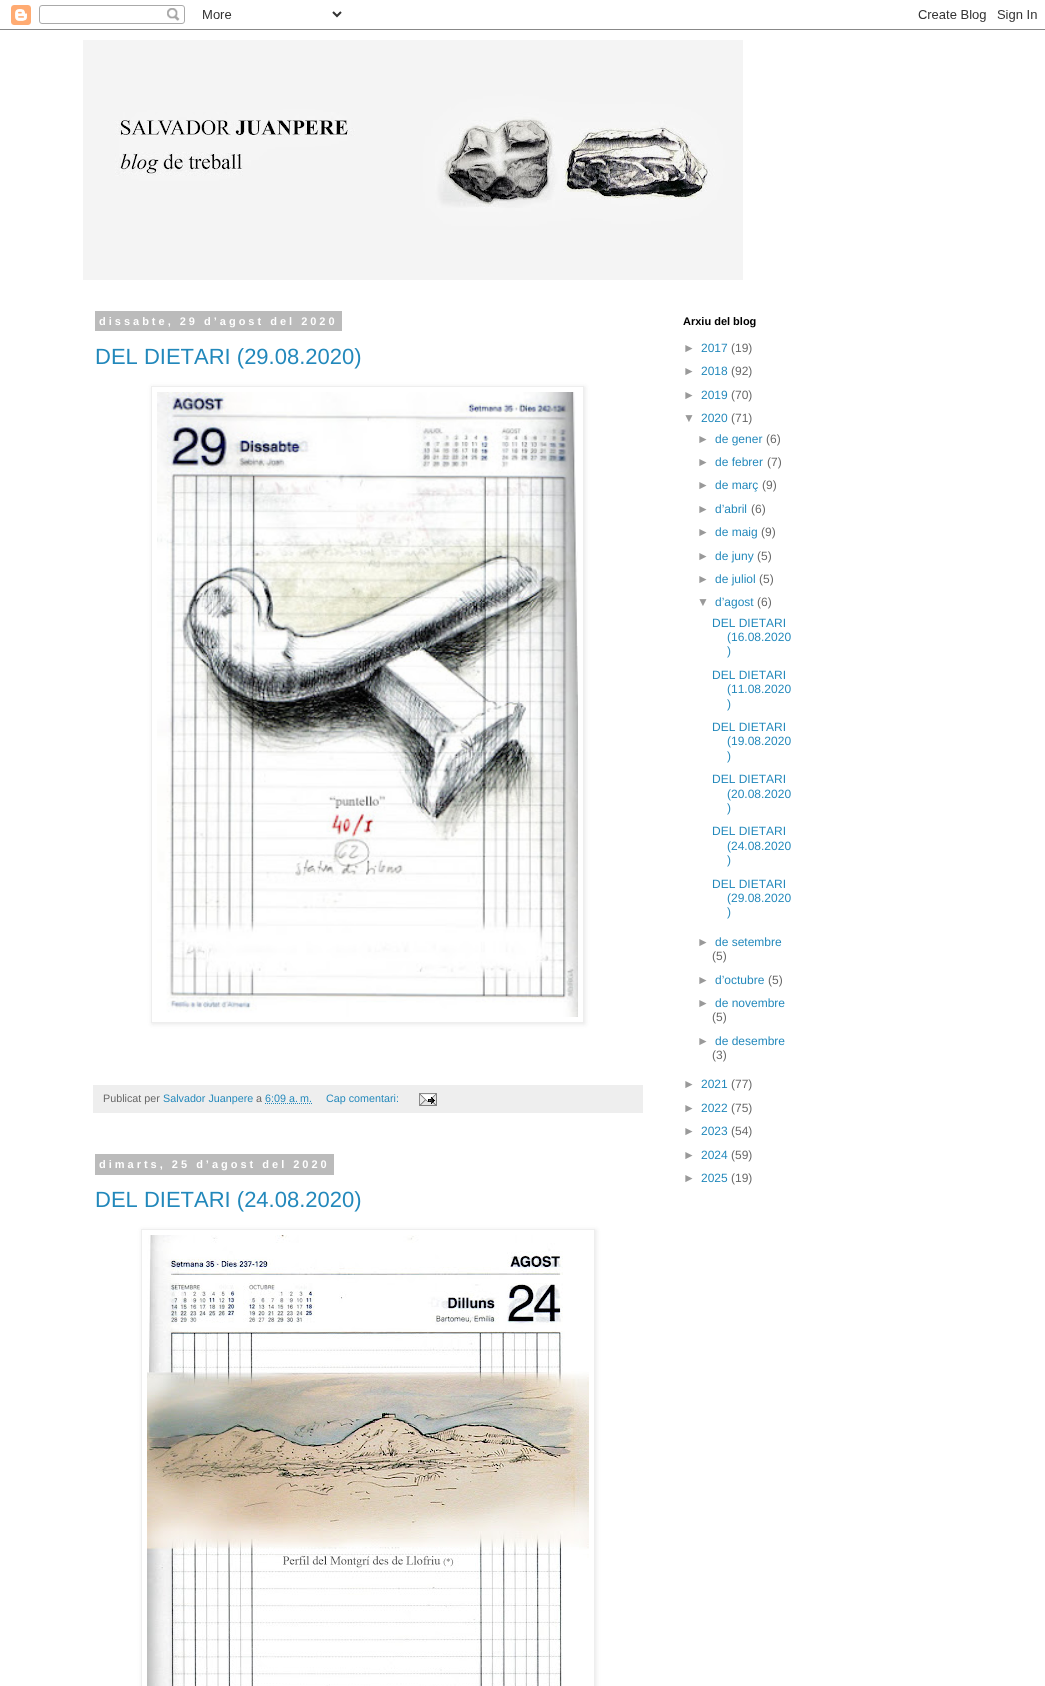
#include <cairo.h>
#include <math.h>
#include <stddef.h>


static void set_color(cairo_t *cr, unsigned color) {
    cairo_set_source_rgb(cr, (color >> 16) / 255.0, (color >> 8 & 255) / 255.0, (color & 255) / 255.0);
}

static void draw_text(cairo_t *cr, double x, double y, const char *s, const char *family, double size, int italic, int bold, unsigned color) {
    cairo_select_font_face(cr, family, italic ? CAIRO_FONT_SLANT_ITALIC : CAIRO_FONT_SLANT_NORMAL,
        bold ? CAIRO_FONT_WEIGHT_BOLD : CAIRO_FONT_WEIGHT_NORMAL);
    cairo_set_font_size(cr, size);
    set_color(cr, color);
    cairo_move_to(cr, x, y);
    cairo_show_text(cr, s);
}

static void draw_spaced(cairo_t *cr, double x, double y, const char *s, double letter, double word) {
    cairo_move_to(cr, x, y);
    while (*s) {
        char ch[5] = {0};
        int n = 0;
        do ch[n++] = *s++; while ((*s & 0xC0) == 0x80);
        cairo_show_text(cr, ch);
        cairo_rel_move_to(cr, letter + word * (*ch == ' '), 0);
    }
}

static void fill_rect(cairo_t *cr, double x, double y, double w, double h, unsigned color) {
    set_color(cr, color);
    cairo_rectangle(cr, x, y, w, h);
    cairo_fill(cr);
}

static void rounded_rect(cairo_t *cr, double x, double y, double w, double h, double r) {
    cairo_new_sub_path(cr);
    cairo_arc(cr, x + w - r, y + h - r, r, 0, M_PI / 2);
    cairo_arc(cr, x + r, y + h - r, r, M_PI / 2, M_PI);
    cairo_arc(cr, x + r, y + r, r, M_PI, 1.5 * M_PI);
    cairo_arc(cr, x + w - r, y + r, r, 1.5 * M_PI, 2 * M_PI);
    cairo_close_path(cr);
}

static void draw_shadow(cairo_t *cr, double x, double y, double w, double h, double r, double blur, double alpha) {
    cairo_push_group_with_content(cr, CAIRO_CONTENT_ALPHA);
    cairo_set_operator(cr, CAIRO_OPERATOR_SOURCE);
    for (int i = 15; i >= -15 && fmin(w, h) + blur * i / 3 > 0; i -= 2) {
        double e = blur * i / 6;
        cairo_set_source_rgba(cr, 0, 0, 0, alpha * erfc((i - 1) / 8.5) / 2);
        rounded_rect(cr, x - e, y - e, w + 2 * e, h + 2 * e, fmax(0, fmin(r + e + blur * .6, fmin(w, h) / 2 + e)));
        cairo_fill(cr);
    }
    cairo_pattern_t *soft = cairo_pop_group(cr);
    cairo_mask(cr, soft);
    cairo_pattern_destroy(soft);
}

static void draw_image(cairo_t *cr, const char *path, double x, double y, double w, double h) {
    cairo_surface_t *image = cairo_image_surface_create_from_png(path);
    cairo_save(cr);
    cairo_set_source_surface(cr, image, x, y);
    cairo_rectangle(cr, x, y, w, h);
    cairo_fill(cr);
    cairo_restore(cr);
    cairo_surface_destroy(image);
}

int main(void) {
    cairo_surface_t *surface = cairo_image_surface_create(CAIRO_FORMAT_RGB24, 1045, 1686);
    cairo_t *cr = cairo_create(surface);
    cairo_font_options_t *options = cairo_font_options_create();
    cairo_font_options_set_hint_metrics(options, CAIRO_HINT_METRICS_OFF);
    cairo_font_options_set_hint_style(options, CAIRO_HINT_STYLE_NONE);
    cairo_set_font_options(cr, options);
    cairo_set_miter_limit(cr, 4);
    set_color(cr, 0xFFFFFF);
    cairo_paint(cr);
    draw_image(cr, "assets/img1.png", 0, 5, 1045, 25);
    draw_image(cr, "assets/img2.png", 83, 40, 660, 240);
    fill_rect(cr, 95, 311, 247, 20, 0xBBBBBB);
    cairo_select_font_face(cr, "Liberation Sans", CAIRO_FONT_SLANT_NORMAL, CAIRO_FONT_WEIGHT_BOLD);
    cairo_set_font_size(cr, 11);
    set_color(cr, 0xFFFFFF);
    draw_spaced(cr, 99, 325, "dissabte, 29 d’agost del 2020", 3, 0);
    draw_text(cr, 95, 364, "DEL DIETARI (29.08.2020)", "Liberation Sans", 22, 0, 0, 0x2288BB);
    cairo_save(cr);
    cairo_set_fill_rule(cr, CAIRO_FILL_RULE_EVEN_ODD);
    cairo_new_path(cr);
    cairo_move_to(cr, 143, 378);
    cairo_line_to(cr, 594, 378);
    cairo_line_to(cr, 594, 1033);
    cairo_line_to(cr, 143, 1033);
    cairo_close_path(cr);
    cairo_move_to(cr, 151, 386);
    cairo_line_to(cr, 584, 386);
    cairo_line_to(cr, 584, 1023);
    cairo_line_to(cr, 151, 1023);
    cairo_close_path(cr);
    cairo_clip(cr);
    set_color(cr, 0x000000);
    draw_shadow(cr, 152, 387, 433, 637, 0, 2.5, 0.1);
    cairo_restore(cr);
    cairo_rectangle(cr, 151.5, 386.5, 432, 636);
    set_color(cr, 0xEEEEEE);
    cairo_set_line_width(cr, 1);
    cairo_stroke(cr);
    draw_image(cr, "assets/img3.png", 157, 392, 421, 625);
    fill_rect(cr, 93, 1085, 550, 28, 0xEEEEEE);
    draw_text(cr, 103, 1102, "Publicat per", "Liberation Sans", 10.75, 0, 0, 0x666666);
    draw_text(cr, 163, 1102, "Salvador Juanpere", "Liberation Sans", 10.75, 0, 0, 0x2288BB);
    draw_text(cr, 256, 1102, "a", "Liberation Sans", 10.75, 0, 0, 0x666666);
    cairo_new_path(cr);
    cairo_move_to(cr, 265, 1103.5);
    cairo_line_to(cr, 312.5, 1103.5);
    set_color(cr, 0x2288BB);
    cairo_set_dash(cr, (double[]){1, 1}, 2, 0);
    cairo_stroke(cr);
    draw_text(cr, 265, 1102, "6:09 a. m.", "Liberation Sans", 10.75, 0, 0, 0x2288BB);
    draw_text(cr, 326, 1102, "Cap comentari:", "Liberation Sans", 10.75, 0, 0, 0x2288BB);
    draw_image(cr, "assets/img4.png", 419, 1093, 18, 13);
    fill_rect(cr, 95, 1154, 239, 21, 0xBBBBBB);
    cairo_select_font_face(cr, "Liberation Sans", CAIRO_FONT_SLANT_NORMAL, CAIRO_FONT_WEIGHT_BOLD);
    cairo_set_font_size(cr, 11);
    set_color(cr, 0xFFFFFF);
    draw_spaced(cr, 99, 1168, "dimarts, 25 d’agost del 2020", 3, 0);
    draw_text(cr, 95, 1207, "DEL DIETARI (24.08.2020)", "Liberation Sans", 22, 0, 0, 0x2288BB);
    cairo_save(cr);
    cairo_set_fill_rule(cr, CAIRO_FILL_RULE_EVEN_ODD);
    cairo_new_path(cr);
    cairo_move_to(cr, 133, 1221);
    cairo_line_to(cr, 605, 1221);
    cairo_line_to(cr, 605, 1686);
    cairo_line_to(cr, 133, 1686);
    cairo_close_path(cr);
    cairo_move_to(cr, 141, 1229);
    cairo_line_to(cr, 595, 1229);
    cairo_line_to(cr, 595, 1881);
    cairo_line_to(cr, 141, 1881);
    cairo_close_path(cr);
    cairo_clip(cr);
    set_color(cr, 0x000000);
    draw_shadow(cr, 142, 1230, 454, 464, 0, 2.5, 0.1);
    cairo_restore(cr);
    cairo_rectangle(cr, 141.5, 1229.5, 453, 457);
    set_color(cr, 0xEEEEEE);
    cairo_set_dash(cr, NULL, 0, 0);
    cairo_stroke(cr);
    draw_image(cr, "assets/img5.png", 147, 1235, 442, 451);
    draw_text(cr, 683, 325, "Arxiu del blog", "Liberation Sans", 11, 0, 1, 0x000000);
    draw_text(cr, 683, 352, "►", "Liberation Sans", 12, 0, 0, 0x999999);
    draw_text(cr, 701, 352, "2017", "Liberation Sans", 12, 0, 0, 0x2288BB);
    draw_text(cr, 731, 352, "(19)", "Liberation Sans", 12, 0, 0, 0x666666);
    draw_text(cr, 683, 375, "►", "Liberation Sans", 12, 0, 0, 0x999999);
    draw_text(cr, 701, 375, "2018", "Liberation Sans", 12, 0, 0, 0x2288BB);
    draw_text(cr, 731, 375, "(92)", "Liberation Sans", 12, 0, 0, 0x666666);
    draw_text(cr, 683, 399, "►", "Liberation Sans", 12, 0, 0, 0x999999);
    draw_text(cr, 701, 399, "2019", "Liberation Sans", 12, 0, 0, 0x2288BB);
    draw_text(cr, 731, 399, "(70)", "Liberation Sans", 12, 0, 0, 0x666666);
    draw_text(cr, 683, 422, "▼", "Liberation Sans", 12, 0, 0, 0x999999);
    draw_text(cr, 701, 422, "2020", "Liberation Sans", 12, 0, 0, 0x2288BB);
    draw_text(cr, 731, 422, "(71)", "Liberation Sans", 12, 0, 0, 0x666666);
    draw_text(cr, 697, 443, "►", "Liberation Sans", 12, 0, 0, 0x999999);
    draw_text(cr, 715, 443, "de gener", "Liberation Sans", 12, 0, 0, 0x2288BB);
    draw_text(cr, 766, 443, "(6)", "Liberation Sans", 12, 0, 0, 0x666666);
    draw_text(cr, 697, 466, "►", "Liberation Sans", 12, 0, 0, 0x999999);
    draw_text(cr, 715, 466, "de febrer", "Liberation Sans", 12, 0, 0, 0x2288BB);
    draw_text(cr, 767, 466, "(7)", "Liberation Sans", 12, 0, 0, 0x666666);
    draw_text(cr, 697, 489, "►", "Liberation Sans", 12, 0, 0, 0x999999);
    draw_text(cr, 715, 489, "de març", "Liberation Sans", 12, 0, 0, 0x2288BB);
    draw_text(cr, 762, 489, "(9)", "Liberation Sans", 12, 0, 0, 0x666666);
    draw_text(cr, 697, 513, "►", "Liberation Sans", 12, 0, 0, 0x999999);
    draw_text(cr, 715, 513, "d’abril", "Liberation Sans", 12, 0, 0, 0x2288BB);
    draw_text(cr, 751, 513, "(6)", "Liberation Sans", 12, 0, 0, 0x666666);
    draw_text(cr, 697, 536, "►", "Liberation Sans", 12, 0, 0, 0x999999);
    draw_text(cr, 715, 536, "de maig", "Liberation Sans", 12, 0, 0, 0x2288BB);
    draw_text(cr, 761, 536, "(9)", "Liberation Sans", 12, 0, 0, 0x666666);
    draw_text(cr, 697, 560, "►", "Liberation Sans", 12, 0, 0, 0x999999);
    draw_text(cr, 715, 560, "de juny", "Liberation Sans", 12, 0, 0, 0x2288BB);
    draw_text(cr, 757, 560, "(5)", "Liberation Sans", 12, 0, 0, 0x666666);
    draw_text(cr, 697, 583, "►", "Liberation Sans", 12, 0, 0, 0x999999);
    draw_text(cr, 715, 583, "de juliol", "Liberation Sans", 12, 0, 0, 0x2288BB);
    draw_text(cr, 759, 583, "(5)", "Liberation Sans", 12, 0, 0, 0x666666);
    draw_text(cr, 697, 606, "▼", "Liberation Sans", 12, 0, 0, 0x999999);
    draw_text(cr, 715, 606, "d’agost", "Liberation Sans", 12, 0, 0, 0x2288BB);
    draw_text(cr, 757, 606, "(6)", "Liberation Sans", 12, 0, 0, 0x666666);
    draw_text(cr, 712, 627, "DEL DIETARI", "Liberation Sans", 12, 0, 0, 0x2288BB);
    draw_text(cr, 727, 641, "(16.08.2020", "Liberation Sans", 12, 0, 0, 0x2288BB);
    draw_text(cr, 727, 655, ")", "Liberation Sans", 12, 0, 0, 0x2288BB);
    draw_text(cr, 712, 679, "DEL DIETARI", "Liberation Sans", 12, 0, 0, 0x2288BB);
    draw_text(cr, 727, 693, "(11.08.2020", "Liberation Sans", 12, 0, 0, 0x2288BB);
    draw_text(cr, 727, 708, ")", "Liberation Sans", 12, 0, 0, 0x2288BB);
    draw_text(cr, 712, 731, "DEL DIETARI", "Liberation Sans", 12, 0, 0, 0x2288BB);
    draw_text(cr, 727, 745, "(19.08.2020", "Liberation Sans", 12, 0, 0, 0x2288BB);
    draw_text(cr, 727, 760, ")", "Liberation Sans", 12, 0, 0, 0x2288BB);
    draw_text(cr, 712, 783, "DEL DIETARI", "Liberation Sans", 12, 0, 0, 0x2288BB);
    draw_text(cr, 727, 798, "(20.08.2020", "Liberation Sans", 12, 0, 0, 0x2288BB);
    draw_text(cr, 727, 812, ")", "Liberation Sans", 12, 0, 0, 0x2288BB);
    draw_text(cr, 712, 835, "DEL DIETARI", "Liberation Sans", 12, 0, 0, 0x2288BB);
    draw_text(cr, 727, 850, "(24.08.2020", "Liberation Sans", 12, 0, 0, 0x2288BB);
    draw_text(cr, 727, 864, ")", "Liberation Sans", 12, 0, 0, 0x2288BB);
    draw_text(cr, 712, 888, "DEL DIETARI", "Liberation Sans", 12, 0, 0, 0x2288BB);
    draw_text(cr, 727, 902, "(29.08.2020", "Liberation Sans", 12, 0, 0, 0x2288BB);
    draw_text(cr, 727, 916, ")", "Liberation Sans", 12, 0, 0, 0x2288BB);
    draw_text(cr, 697, 946, "►", "Liberation Sans", 12, 0, 0, 0x999999);
    draw_text(cr, 715, 946, "de setembre", "Liberation Sans", 12, 0, 0, 0x2288BB);
    draw_text(cr, 712, 960, "(5)", "Liberation Sans", 12, 0, 0, 0x666666);
    draw_text(cr, 697, 984, "►", "Liberation Sans", 12, 0, 0, 0x999999);
    draw_text(cr, 715, 984, "d’octubre", "Liberation Sans", 12, 0, 0, 0x2288BB);
    draw_text(cr, 768, 984, "(5)", "Liberation Sans", 12, 0, 0, 0x666666);
    draw_text(cr, 697, 1007, "►", "Liberation Sans", 12, 0, 0, 0x999999);
    draw_text(cr, 715, 1007, "de novembre", "Liberation Sans", 12, 0, 0, 0x2288BB);
    draw_text(cr, 712, 1021, "(5)", "Liberation Sans", 12, 0, 0, 0x666666);
    draw_text(cr, 697, 1045, "►", "Liberation Sans", 12, 0, 0, 0x999999);
    draw_text(cr, 715, 1045, "de desembre", "Liberation Sans", 12, 0, 0, 0x2288BB);
    draw_text(cr, 712, 1059, "(3)", "Liberation Sans", 12, 0, 0, 0x666666);
    draw_text(cr, 683, 1088, "►", "Liberation Sans", 12, 0, 0, 0x999999);
    draw_text(cr, 701, 1088, "2021", "Liberation Sans", 12, 0, 0, 0x2288BB);
    draw_text(cr, 731, 1088, "(77)", "Liberation Sans", 12, 0, 0, 0x666666);
    draw_text(cr, 683, 1112, "►", "Liberation Sans", 12, 0, 0, 0x999999);
    draw_text(cr, 701, 1112, "2022", "Liberation Sans", 12, 0, 0, 0x2288BB);
    draw_text(cr, 731, 1112, "(75)", "Liberation Sans", 12, 0, 0, 0x666666);
    draw_text(cr, 683, 1135, "►", "Liberation Sans", 12, 0, 0, 0x999999);
    draw_text(cr, 701, 1135, "2023", "Liberation Sans", 12, 0, 0, 0x2288BB);
    draw_text(cr, 731, 1135, "(54)", "Liberation Sans", 12, 0, 0, 0x666666);
    draw_text(cr, 683, 1159, "►", "Liberation Sans", 12, 0, 0, 0x999999);
    draw_text(cr, 701, 1159, "2024", "Liberation Sans", 12, 0, 0, 0x2288BB);
    draw_text(cr, 731, 1159, "(59)", "Liberation Sans", 12, 0, 0, 0x666666);
    draw_text(cr, 683, 1182, "►", "Liberation Sans", 12, 0, 0, 0x999999);
    draw_text(cr, 701, 1182, "2025", "Liberation Sans", 12, 0, 0, 0x2288BB);
    draw_text(cr, 731, 1182, "(19)", "Liberation Sans", 12, 0, 0, 0x666666);
    cairo_surface_write_to_png(surface, "output.png");
    cairo_font_options_destroy(options);
    cairo_destroy(cr);
    cairo_surface_destroy(surface);
    return 0;
}
